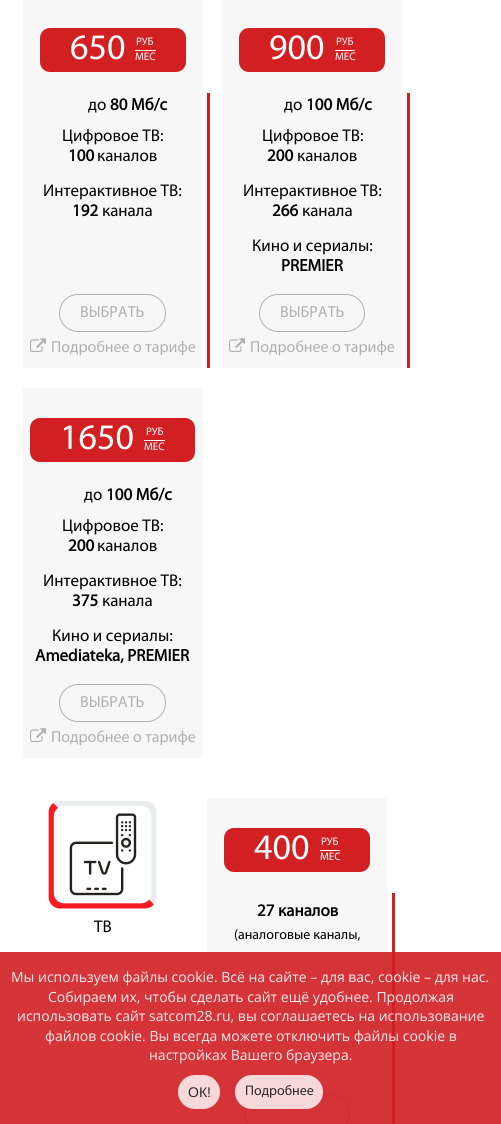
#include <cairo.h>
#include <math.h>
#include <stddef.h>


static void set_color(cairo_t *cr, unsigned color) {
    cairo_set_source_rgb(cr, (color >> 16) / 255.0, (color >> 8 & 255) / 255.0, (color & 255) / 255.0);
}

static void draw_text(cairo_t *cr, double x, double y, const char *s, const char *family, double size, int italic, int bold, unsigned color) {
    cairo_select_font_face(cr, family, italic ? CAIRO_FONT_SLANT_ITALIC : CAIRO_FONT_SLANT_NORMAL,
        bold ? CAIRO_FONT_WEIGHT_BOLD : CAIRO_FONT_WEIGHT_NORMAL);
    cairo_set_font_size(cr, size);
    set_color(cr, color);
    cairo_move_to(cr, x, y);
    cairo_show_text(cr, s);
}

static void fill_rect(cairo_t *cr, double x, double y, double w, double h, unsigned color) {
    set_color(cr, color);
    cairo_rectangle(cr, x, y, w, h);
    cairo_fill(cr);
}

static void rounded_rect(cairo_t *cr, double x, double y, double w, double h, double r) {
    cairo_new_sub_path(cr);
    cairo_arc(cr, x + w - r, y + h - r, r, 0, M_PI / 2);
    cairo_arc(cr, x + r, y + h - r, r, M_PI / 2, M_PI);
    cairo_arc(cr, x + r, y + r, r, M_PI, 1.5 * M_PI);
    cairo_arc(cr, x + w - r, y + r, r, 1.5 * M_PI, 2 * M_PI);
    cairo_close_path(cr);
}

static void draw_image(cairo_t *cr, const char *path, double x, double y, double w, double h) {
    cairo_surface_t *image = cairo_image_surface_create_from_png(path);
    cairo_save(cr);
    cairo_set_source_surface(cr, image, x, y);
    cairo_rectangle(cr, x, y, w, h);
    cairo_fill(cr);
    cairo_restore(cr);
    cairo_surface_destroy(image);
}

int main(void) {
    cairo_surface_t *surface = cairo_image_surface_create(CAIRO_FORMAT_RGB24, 501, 1124);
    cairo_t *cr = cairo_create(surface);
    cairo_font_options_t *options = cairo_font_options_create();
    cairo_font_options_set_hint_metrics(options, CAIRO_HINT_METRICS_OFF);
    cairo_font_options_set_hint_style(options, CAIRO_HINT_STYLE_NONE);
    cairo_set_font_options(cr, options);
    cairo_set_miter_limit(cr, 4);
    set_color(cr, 0xFFFFFF);
    cairo_paint(cr);
    fill_rect(cr, 23, 0, 180, 368, 0xF7F7F7);
    set_color(cr, 0xD11F22);
    rounded_rect(cr, 40, 28, 146, 44, 10);
    cairo_fill(cr);
    draw_text(cr, 70, 59, "650", "Myriad", 36, 0, 0, 0xFFFFFF);
    fill_rect(cr, 135, 50, 21, 1, 0xFFFFFF);
    draw_text(cr, 136, 45, "РУБ", "Myriad", 11, 0, 0, 0xFFFFFF);
    draw_text(cr, 135, 60, "МЕС", "Myriad", 11, 0, 0, 0xFFFFFF);
    draw_text(cr, 88, 110, "до", "Myriad", 17, 0, 0, 0x000000);
    draw_text(cr, 110, 110, "80 Мб/с", "Myriad", 17, 0, 1, 0x000000);
    draw_text(cr, 62, 141, "Цифровое ТВ:", "Myriad", 17, 0, 0, 0x000000);
    draw_text(cr, 68, 161, "100", "Myriad", 17, 0, 1, 0x000000);
    draw_text(cr, 97, 161, "каналов", "Myriad", 17, 0, 0, 0x000000);
    draw_text(cr, 43, 196, "Интерактивное ТВ:", "Myriad", 17, 0, 0, 0x000000);
    draw_text(cr, 72, 216, "192", "Myriad", 17, 0, 1, 0x000000);
    draw_text(cr, 102, 216, "канала", "Myriad", 17, 0, 0, 0x000000);
    rounded_rect(cr, 59.5, 294.5, 106, 37, 18.5);
    set_color(cr, 0xB1B1B1);
    cairo_set_line_width(cr, 1);
    cairo_stroke(cr);
    draw_text(cr, 80, 317, "ВЫБРАТЬ", "Myriad", 16, 0, 0, 0xB1B1B1);
    draw_image(cr, "assets/img1.png", 30, 338, 16, 14);
    draw_text(cr, 51, 352, "Подробнее о тарифе", "Myriad", 16, 0, 0, 0xB1B1B1);
    fill_rect(cr, 207, 93, 3, 275, 0xD11F22);
    fill_rect(cr, 222, 0, 180, 368, 0xF7F7F7);
    set_color(cr, 0xD11F22);
    rounded_rect(cr, 239, 28, 146, 44, 10);
    cairo_fill(cr);
    draw_text(cr, 269, 59, "900", "Myriad", 36, 0, 0, 0xFFFFFF);
    fill_rect(cr, 335, 50, 20, 1, 0xFFFFFF);
    draw_text(cr, 336, 45, "РУБ", "Myriad", 11, 0, 0, 0xFFFFFF);
    draw_text(cr, 335, 60, "МЕС", "Myriad", 11, 0, 0, 0xFFFFFF);
    draw_text(cr, 284, 110, "до", "Myriad", 17, 0, 0, 0x000000);
    draw_text(cr, 306, 110, "100 Мб/с", "Myriad", 17, 0, 1, 0x000000);
    draw_text(cr, 262, 141, "Цифровое ТВ:", "Myriad", 17, 0, 0, 0x000000);
    draw_text(cr, 267, 161, "200", "Myriad", 17, 0, 1, 0x000000);
    draw_text(cr, 297, 161, "каналов", "Myriad", 17, 0, 0, 0x000000);
    draw_text(cr, 243, 196, "Интерактивное ТВ:", "Myriad", 17, 0, 0, 0x000000);
    draw_text(cr, 272, 216, "266", "Myriad", 17, 0, 1, 0x000000);
    draw_text(cr, 302, 216, "канала", "Myriad", 17, 0, 0, 0x000000);
    draw_text(cr, 252, 251, "Кино и сериалы:", "Myriad", 17, 0, 0, 0x000000);
    draw_text(cr, 281, 271, "PREMIER", "Myriad", 17, 0, 1, 0x000000);
    rounded_rect(cr, 259.5, 294.5, 105, 37, 18.5);
    set_color(cr, 0xB1B1B1);
    cairo_stroke(cr);
    draw_text(cr, 280, 317, "ВЫБРАТЬ", "Myriad", 16, 0, 0, 0xB1B1B1);
    draw_image(cr, "assets/img1.png", 229, 338, 16, 14);
    draw_text(cr, 250, 352, "Подробнее о тарифе", "Myriad", 16, 0, 0, 0xB1B1B1);
    fill_rect(cr, 407, 93, 3, 275, 0xD11F22);
    fill_rect(cr, 23, 388, 180, 370, 0xF7F7F7);
    set_color(cr, 0xD11F22);
    rounded_rect(cr, 30, 418, 165, 44, 10);
    cairo_fill(cr);
    draw_text(cr, 60, 449, "1650", "Myriad", 36, 0, 0, 0xFFFFFF);
    fill_rect(cr, 144, 440, 21, 1, 0xFFFFFF);
    draw_text(cr, 146, 435, "РУБ", "Myriad", 11, 0, 0, 0xFFFFFF);
    draw_text(cr, 144, 450, "МЕС", "Myriad", 11, 0, 0, 0xFFFFFF);
    draw_text(cr, 84, 500, "до", "Myriad", 17, 0, 0, 0x000000);
    draw_text(cr, 106, 500, "100 Мб/с", "Myriad", 17, 0, 1, 0x000000);
    draw_text(cr, 62, 531, "Цифровое ТВ:", "Myriad", 17, 0, 0, 0x000000);
    draw_text(cr, 68, 551, "200", "Myriad", 17, 0, 1, 0x000000);
    draw_text(cr, 97, 551, "каналов", "Myriad", 17, 0, 0, 0x000000);
    draw_text(cr, 43, 586, "Интерактивное ТВ:", "Myriad", 17, 0, 0, 0x000000);
    draw_text(cr, 72, 606, "375", "Myriad", 17, 0, 1, 0x000000);
    draw_text(cr, 102, 606, "канала", "Myriad", 17, 0, 0, 0x000000);
    draw_text(cr, 52, 641, "Кино и сериалы:", "Myriad", 17, 0, 0, 0x000000);
    draw_text(cr, 35, 661, "Amediateka, PREMIER", "Myriad", 17, 0, 1, 0x000000);
    rounded_rect(cr, 59.5, 684.5, 106, 37, 18.5);
    set_color(cr, 0xB1B1B1);
    cairo_stroke(cr);
    draw_text(cr, 80, 707, "ВЫБРАТЬ", "Myriad", 16, 0, 0, 0xB1B1B1);
    draw_image(cr, "assets/img1.png", 30, 728, 16, 14);
    draw_text(cr, 51, 742, "Подробнее о тарифе", "Myriad", 16, 0, 0, 0xB1B1B1);
    draw_image(cr, "assets/img2.png", 48, 801, 109, 108);
    draw_text(cr, 94, 932, "ТВ", "Myriad", 17, 0, 0, 0x000000);
    fill_rect(cr, 207, 798, 180, 326, 0xF7F7F7);
    set_color(cr, 0xD11F22);
    rounded_rect(cr, 224, 828, 146, 44, 10);
    cairo_fill(cr);
    draw_text(cr, 254, 859, "400", "Myriad", 36, 0, 0, 0xFFFFFF);
    fill_rect(cr, 320, 850, 20, 1, 0xFFFFFF);
    draw_text(cr, 321, 845, "РУБ", "Myriad", 11, 0, 0, 0xFFFFFF);
    draw_text(cr, 320, 860, "МЕС", "Myriad", 11, 0, 0, 0xFFFFFF);
    draw_text(cr, 257, 916, "27 каналов", "Myriad", 17, 0, 1, 0x000000);
    draw_text(cr, 234, 939, "(аналоговые каналы,", "Myriad", 14, 0, 0, 0x000000);
    rounded_rect(cr, 244.5, 1094.5, 105, 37, 18.5);
    set_color(cr, 0xB1B1B1);
    cairo_stroke(cr);
    fill_rect(cr, 392, 893, 3, 231, 0xD11F22);
    cairo_set_source_rgba(cr, 0.82, 0.125, 0.137, 0.9);
    cairo_rectangle(cr, 0, 952, 501, 172);
    cairo_fill(cr);
    draw_text(cr, 11, 982, "Мы используем файлы cookie. Всё на сайте – для вас, cookie – для нас.", "Open Sans", 14, 0, 0, 0xFBEBEB);
    draw_text(cr, 48, 1002, "Собираем их, чтобы сделать сайт ещё удобнее. Продолжая", "Open Sans", 14, 0, 0, 0xFBEBEB);
    draw_text(cr, 17, 1021, "использовать сайт satcom28.ru, вы соглашаетесь на использование", "Open Sans", 14, 0, 0, 0xFBEBEB);
    draw_text(cr, 45, 1041, "файлов cookie. Вы всегда можете отключить файлы cookie в", "Open Sans", 14, 0, 0, 0xFBEBEB);
    draw_text(cr, 149, 1060, "настройках Вашего браузера.", "Open Sans", 14, 0, 0, 0xFBEBEB);
    set_color(cr, 0xF7D9D9);
    rounded_rect(cr, 178, 1075, 42, 34, 17);
    cairo_fill(cr);
    draw_text(cr, 188, 1097, "ОК!", "Liberation Sans", 14, 0, 0, 0x2F2929);
    cairo_set_source_rgba(cr, 1, 1, 1, 0.81);
    rounded_rect(cr, 235, 1075, 88, 34, 17);
    cairo_fill(cr);
    draw_text(cr, 245, 1095, "Подробнее", "Myriad", 14, 0, 0, 0x2F2929);
    cairo_surface_write_to_png(surface, "output.png");
    cairo_font_options_destroy(options);
    cairo_destroy(cr);
    cairo_surface_destroy(surface);
    return 0;
}
